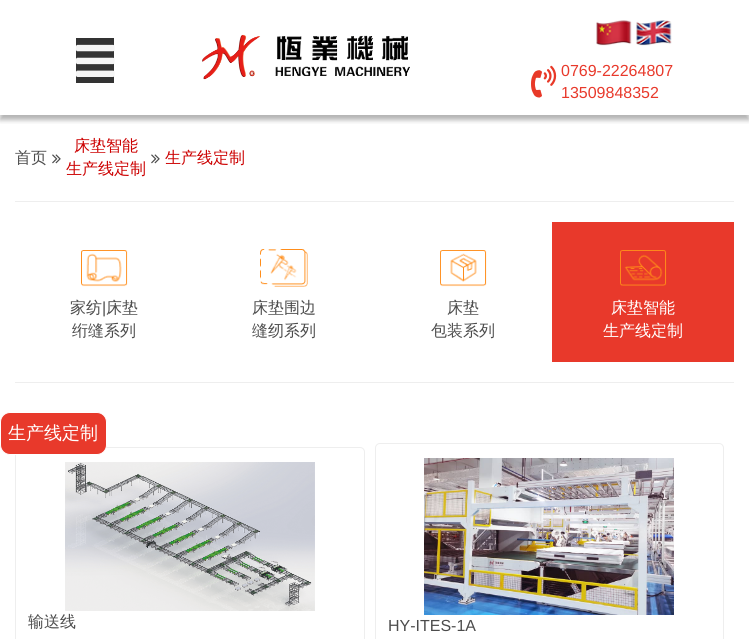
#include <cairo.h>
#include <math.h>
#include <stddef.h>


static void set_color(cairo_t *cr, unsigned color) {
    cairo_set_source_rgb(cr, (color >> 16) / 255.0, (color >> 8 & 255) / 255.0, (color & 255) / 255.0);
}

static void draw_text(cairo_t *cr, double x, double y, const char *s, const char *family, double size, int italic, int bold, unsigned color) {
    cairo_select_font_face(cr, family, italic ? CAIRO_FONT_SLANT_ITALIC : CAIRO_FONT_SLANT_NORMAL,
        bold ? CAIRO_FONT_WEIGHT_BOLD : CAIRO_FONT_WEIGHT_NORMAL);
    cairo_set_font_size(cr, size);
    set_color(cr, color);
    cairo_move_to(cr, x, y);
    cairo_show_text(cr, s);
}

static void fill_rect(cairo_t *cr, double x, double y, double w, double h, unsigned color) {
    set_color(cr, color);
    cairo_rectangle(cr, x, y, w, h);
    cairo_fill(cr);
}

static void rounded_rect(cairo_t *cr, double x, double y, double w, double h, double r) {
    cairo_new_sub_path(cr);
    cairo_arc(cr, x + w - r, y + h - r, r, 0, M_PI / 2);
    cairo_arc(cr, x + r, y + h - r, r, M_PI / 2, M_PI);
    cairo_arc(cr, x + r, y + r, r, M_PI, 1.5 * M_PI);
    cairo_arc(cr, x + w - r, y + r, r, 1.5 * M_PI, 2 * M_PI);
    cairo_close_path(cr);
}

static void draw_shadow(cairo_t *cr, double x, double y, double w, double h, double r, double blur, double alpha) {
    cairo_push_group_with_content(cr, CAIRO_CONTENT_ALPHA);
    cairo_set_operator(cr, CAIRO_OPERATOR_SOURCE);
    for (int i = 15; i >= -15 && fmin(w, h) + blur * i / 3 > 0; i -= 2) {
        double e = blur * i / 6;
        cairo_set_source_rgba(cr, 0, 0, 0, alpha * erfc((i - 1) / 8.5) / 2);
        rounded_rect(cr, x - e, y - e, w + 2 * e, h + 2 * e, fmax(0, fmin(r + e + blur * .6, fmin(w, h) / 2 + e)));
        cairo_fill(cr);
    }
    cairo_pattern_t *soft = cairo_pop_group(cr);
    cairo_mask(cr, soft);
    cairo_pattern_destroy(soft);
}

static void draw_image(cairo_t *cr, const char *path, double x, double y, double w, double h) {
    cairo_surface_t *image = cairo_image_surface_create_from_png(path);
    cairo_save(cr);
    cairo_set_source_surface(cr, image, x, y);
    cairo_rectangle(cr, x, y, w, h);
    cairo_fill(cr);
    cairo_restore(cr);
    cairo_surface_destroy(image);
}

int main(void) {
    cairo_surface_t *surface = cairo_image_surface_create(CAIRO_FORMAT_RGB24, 749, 639);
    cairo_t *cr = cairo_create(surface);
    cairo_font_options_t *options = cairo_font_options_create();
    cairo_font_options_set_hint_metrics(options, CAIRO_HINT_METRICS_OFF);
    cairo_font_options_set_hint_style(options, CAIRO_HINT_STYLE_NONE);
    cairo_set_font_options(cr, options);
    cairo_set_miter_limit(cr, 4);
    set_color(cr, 0xFFFFFF);
    cairo_paint(cr);
    cairo_save(cr);
    cairo_rectangle(cr, 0, 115, 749, 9);
    cairo_clip(cr);
    set_color(cr, 0x000000);
    draw_shadow(cr, 0, 5, 749, 115, 0, 2.5, 0.3);
    cairo_restore(cr);
    fill_rect(cr, 76, 38, 38, 45, 0x333333);
    draw_image(cr, "assets/img1.png", 76, 44, 39, 33);
    draw_image(cr, "assets/img2.png", 202, 34, 208, 46);
    draw_image(cr, "assets/img3.png", 596, 20, 36, 26);
    draw_image(cr, "assets/img4.png", 636, 20, 36, 26);
    draw_image(cr, "assets/img5.png", 531, 65, 26, 33);
    draw_text(cr, 561, 76, "0769-22264807", "Liberation Sans", 16, 0, 0, 0xE8392B);
    draw_text(cr, 561, 98, "13509848352", "Liberation Sans", 16, 0, 0, 0xE8392B);
    fill_rect(cr, 15, 201, 719, 1, 0xEEEEEE);
    draw_text(cr, 15, 163, "首页", "WenQuanYi Zen Hei Medium", 16, 0, 0, 0x4C4C4C);
    draw_image(cr, "assets/img6.png", 52, 154, 9, 10);
    draw_text(cr, 74, 151, "床垫智能", "WenQuanYi Zen Hei Medium", 16, 0, 0, 0xCC0000);
    draw_text(cr, 66, 174, "生产线定制", "WenQuanYi Zen Hei Medium", 16, 0, 0, 0xCC0000);
    draw_image(cr, "assets/img6.png", 151, 154, 9, 10);
    draw_text(cr, 165, 163, "生产线定制", "WenQuanYi Zen Hei Medium", 16, 0, 0, 0xCC0000);
    fill_rect(cr, 15, 382, 719, 1, 0xEEEEEE);
    fill_rect(cr, 552, 222, 182, 140, 0xE8392B);
    draw_image(cr, "assets/img7.png", 620, 250, 47, 36);
    draw_text(cr, 611, 313, "床垫智能", "WenQuanYi Zen Hei Medium", 16, 0, 0, 0xFFFFFF);
    draw_text(cr, 603, 336, "生产线定制", "WenQuanYi Zen Hei Medium", 16, 0, 0, 0xFFFFFF);
    rounded_rect(cr, 15.5, 447.5, 349, 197, 4.5);
    set_color(cr, 0xEEEEEE);
    cairo_set_line_width(cr, 1);
    cairo_stroke(cr);
    set_color(cr, 0xE8392B);
    rounded_rect(cr, 0.5, 412.5, 106, 42, 9.5);
    cairo_fill_preserve(cr);
    set_color(cr, 0xFFFFFF);
    cairo_stroke(cr);
    draw_text(cr, 8, 439, "生产线定制", "WenQuanYi Zen Hei Medium", 18, 0, 0, 0xFFFFFF);
    draw_image(cr, "assets/img8.png", 81, 250, 47, 37);
    draw_text(cr, 70, 313, "家纺", "WenQuanYi Zen Hei Medium", 16, 0, 0, 0x4C4C4C);
    draw_text(cr, 102, 313, "|", "Liberation Sans", 16, 0, 0, 0x4C4C4C);
    draw_text(cr, 106, 313, "床垫", "WenQuanYi Zen Hei Medium", 16, 0, 0, 0x4C4C4C);
    draw_text(cr, 72, 336, "绗缝系列", "WenQuanYi Zen Hei Medium", 16, 0, 0, 0x4C4C4C);
    draw_image(cr, "assets/img9.png", 260, 249, 48, 38);
    draw_text(cr, 252, 313, "床垫围边", "WenQuanYi Zen Hei Medium", 16, 0, 0, 0x4C4C4C);
    draw_text(cr, 252, 336, "缝纫系列", "WenQuanYi Zen Hei Medium", 16, 0, 0, 0x4C4C4C);
    draw_image(cr, "assets/img10.png", 440, 250, 47, 37);
    draw_text(cr, 447, 313, "床垫", "WenQuanYi Zen Hei Medium", 16, 0, 0, 0x4C4C4C);
    draw_text(cr, 431, 336, "包装系列", "WenQuanYi Zen Hei Medium", 16, 0, 0, 0x4C4C4C);
    draw_image(cr, "assets/img11.png", 65, 462, 250, 149);
    draw_text(cr, 28, 627, "输送线", "WenQuanYi Zen Hei Medium", 16, 0, 0, 0x4C4C4C);
    rounded_rect(cr, 375.5, 443.5, 348, 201, 4.5);
    set_color(cr, 0xEEEEEE);
    cairo_stroke(cr);
    draw_image(cr, "assets/img12.png", 424, 458, 250, 157);
    draw_text(cr, 388, 631, "HY-ITES-1A", "Liberation Sans", 16, 0, 0, 0x4C4C4C);
    cairo_surface_write_to_png(surface, "output.png");
    cairo_font_options_destroy(options);
    cairo_destroy(cr);
    cairo_surface_destroy(surface);
    return 0;
}
